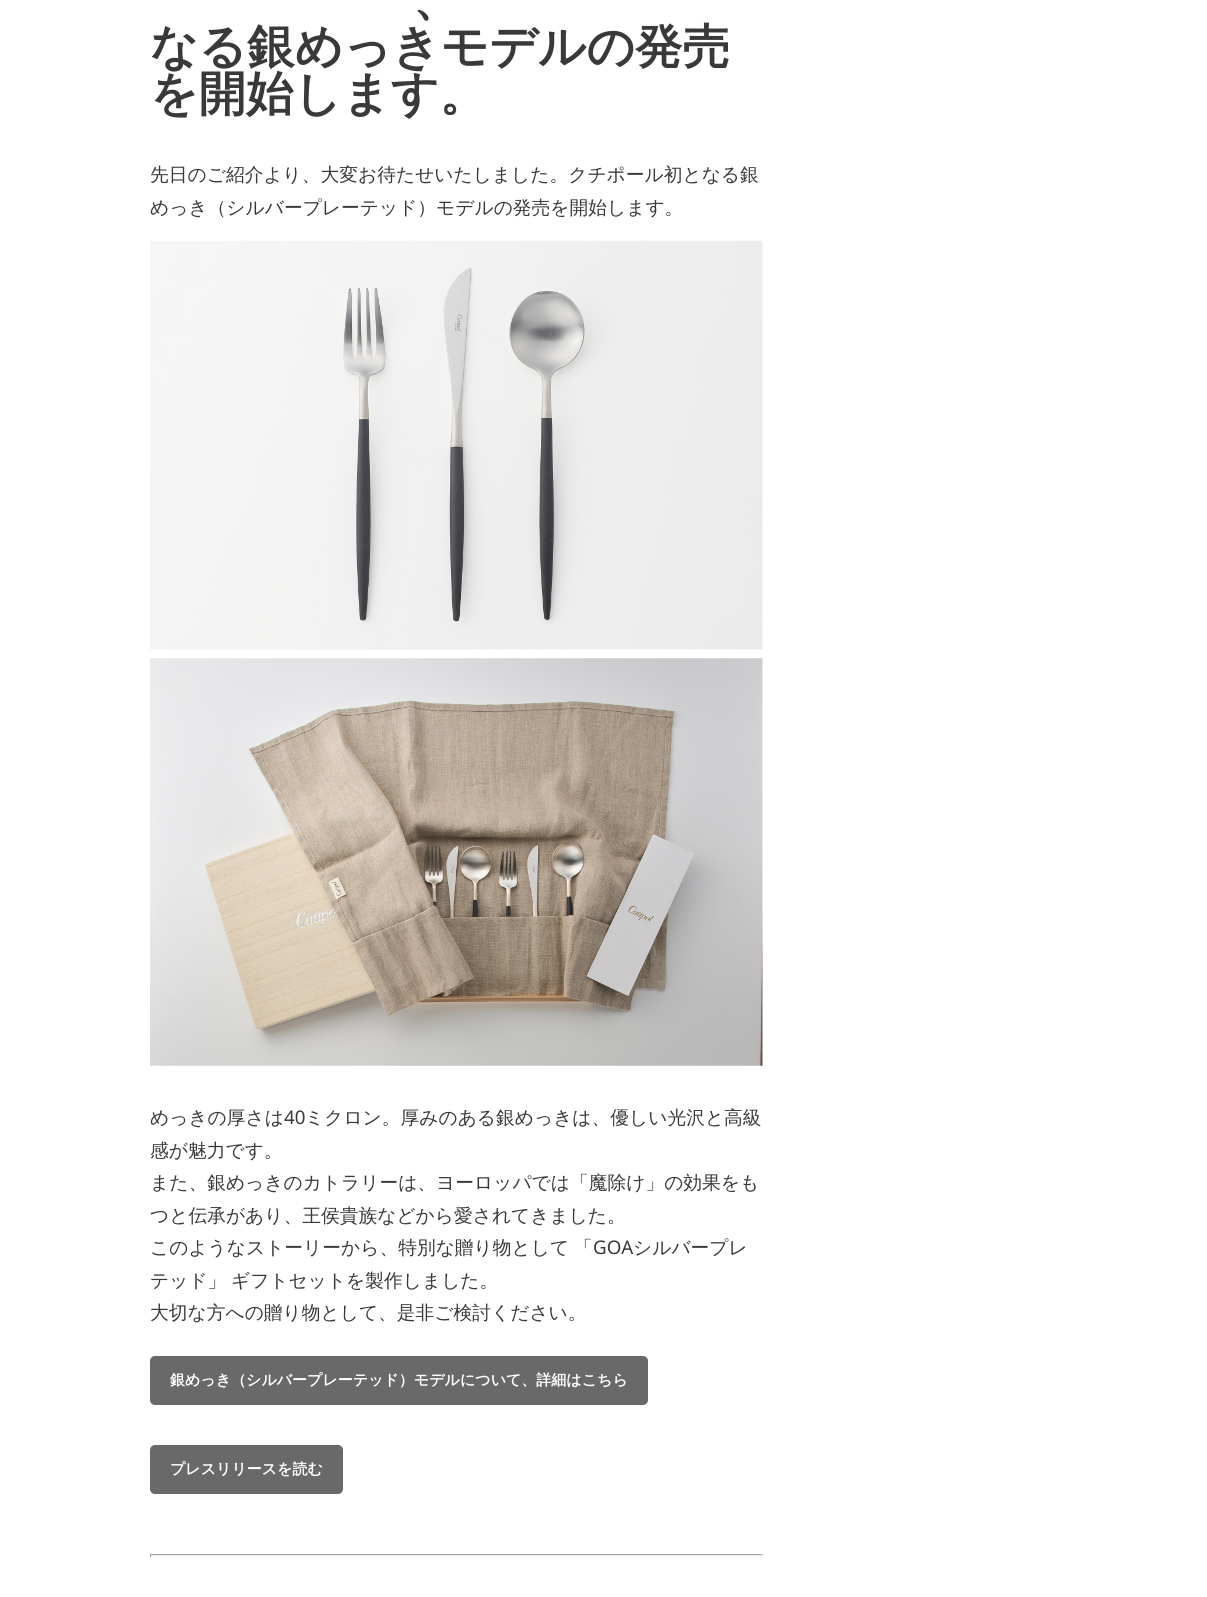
#include <cairo.h>
#include <math.h>
#include <stddef.h>


static void set_color(cairo_t *cr, unsigned color) {
    cairo_set_source_rgb(cr, (color >> 16) / 255.0, (color >> 8 & 255) / 255.0, (color & 255) / 255.0);
}

static void draw_text(cairo_t *cr, double x, double y, const char *s, const char *family, double size, int italic, int bold, unsigned color) {
    cairo_select_font_face(cr, family, italic ? CAIRO_FONT_SLANT_ITALIC : CAIRO_FONT_SLANT_NORMAL,
        bold ? CAIRO_FONT_WEIGHT_BOLD : CAIRO_FONT_WEIGHT_NORMAL);
    cairo_set_font_size(cr, size);
    set_color(cr, color);
    cairo_move_to(cr, x, y);
    cairo_show_text(cr, s);
}

static void draw_spaced(cairo_t *cr, double x, double y, const char *s, double letter, double word) {
    cairo_move_to(cr, x, y);
    while (*s) {
        char ch[5] = {0};
        int n = 0;
        do ch[n++] = *s++; while ((*s & 0xC0) == 0x80);
        cairo_show_text(cr, ch);
        cairo_rel_move_to(cr, letter + word * (*ch == ' '), 0);
    }
}

static void fill_rect(cairo_t *cr, double x, double y, double w, double h, unsigned color) {
    set_color(cr, color);
    cairo_rectangle(cr, x, y, w, h);
    cairo_fill(cr);
}

static void rounded_rect(cairo_t *cr, double x, double y, double w, double h, double r) {
    cairo_new_sub_path(cr);
    cairo_arc(cr, x + w - r, y + h - r, r, 0, M_PI / 2);
    cairo_arc(cr, x + r, y + h - r, r, M_PI / 2, M_PI);
    cairo_arc(cr, x + r, y + r, r, M_PI, 1.5 * M_PI);
    cairo_arc(cr, x + w - r, y + r, r, 1.5 * M_PI, 2 * M_PI);
    cairo_close_path(cr);
}

static void draw_image(cairo_t *cr, const char *path, double x, double y, double w, double h) {
    cairo_surface_t *image = cairo_image_surface_create_from_png(path);
    cairo_save(cr);
    cairo_set_source_surface(cr, image, x, y);
    cairo_rectangle(cr, x, y, w, h);
    cairo_fill(cr);
    cairo_restore(cr);
    cairo_surface_destroy(image);
}

int main(void) {
    cairo_surface_t *surface = cairo_image_surface_create(CAIRO_FORMAT_RGB24, 1207, 1597);
    cairo_t *cr = cairo_create(surface);
    cairo_font_options_t *options = cairo_font_options_create();
    cairo_font_options_set_hint_metrics(options, CAIRO_HINT_METRICS_OFF);
    cairo_font_options_set_hint_style(options, CAIRO_HINT_STYLE_NONE);
    cairo_set_font_options(cr, options);
    cairo_set_miter_limit(cr, 4);
    set_color(cr, 0xFFFFFF);
    cairo_paint(cr);
    draw_text(cr, 413, 15, "、", "WenQuanYi Zen Hei", 47.5, 0, 1, 0x393939);
    draw_text(cr, 150, 63, "なる銀めっきモデルの発売", "WenQuanYi Zen Hei", 47.5, 0, 1, 0x393939);
    draw_text(cr, 150, 110, "を開始します。", "WenQuanYi Zen Hei", 47.5, 0, 1, 0x393939);
    draw_text(cr, 150, 181, "先日のご紹介より、大変お待たせいたしました。クチポール初となる銀", "WenQuanYi Zen Hei Medium", 18.75, 0, 0, 0x393939);
    draw_text(cr, 150, 214, "めっき（シルバープレーテッド）モデルの発売を開始します。", "WenQuanYi Zen Hei Medium", 18.75, 0, 0, 0x393939);
    draw_image(cr, "assets/img1.png", 150, 240, 613, 410);
    draw_image(cr, "assets/img2.png", 150, 658, 613, 408);
    draw_text(cr, 150, 1124, "めっきの厚さは", "WenQuanYi Zen Hei Medium", 18.75, 0, 0, 0x393939);
    draw_text(cr, 284, 1124, "40", "Noto Sans", 18.75, 0, 0, 0x393939);
    draw_text(cr, 305, 1124, "ミクロン。厚みのある銀めっきは、優しい光沢と高級", "WenQuanYi Zen Hei Medium", 18.75, 0, 0, 0x393939);
    draw_text(cr, 150, 1157, "感が魅力です。", "WenQuanYi Zen Hei Medium", 18.75, 0, 0, 0x393939);
    draw_text(cr, 150, 1189, "また、銀めっきのカトラリーは、ヨーロッパでは「魔除け」の効果をも", "WenQuanYi Zen Hei Medium", 18.75, 0, 0, 0x393939);
    draw_text(cr, 150, 1222, "つと伝承があり、王侯貴族などから愛されてきました。", "WenQuanYi Zen Hei Medium", 18.75, 0, 0, 0x393939);
    draw_spaced(cr, 150, 1254, "このようなストーリーから、特別な贈り物として 「", 0, -1);
    draw_text(cr, 593, 1254, "GOA", "Noto Sans", 18.75, 0, 0, 0x393939);
    draw_text(cr, 633, 1254, "シルバープレ", "WenQuanYi Zen Hei Medium", 18.75, 0, 0, 0x393939);
    draw_spaced(cr, 150, 1287, "テッド」 ギフトセットを製作しました。", 0, -1);
    draw_text(cr, 150, 1319, "大切な方への贈り物として、是非ご検討ください。", "WenQuanYi Zen Hei Medium", 18.75, 0, 0, 0x393939);
    set_color(cr, 0x696969);
    rounded_rect(cr, 150, 1356, 498, 49, 5);
    cairo_fill(cr);
    draw_text(cr, 170, 1385, "銀めっき（シルバープレーテッド）モデルについて、詳細はこちら", "WenQuanYi Zen Hei", 15, 0, 1, 0xFFFFFF);
    set_color(cr, 0x696969);
    rounded_rect(cr, 150, 1445, 193, 49, 5);
    cairo_fill(cr);
    draw_text(cr, 170, 1474, "プレスリリースを読む", "WenQuanYi Zen Hei", 15, 0, 1, 0xFFFFFF);
    fill_rect(cr, 150, 1554, 613, 1, 0x9F9F9F);
    fill_rect(cr, 761, 1554, 1, 3, 0xEEEEEE);
    fill_rect(cr, 150, 1555, 613, 1, 0xEEEEEE);
    fill_rect(cr, 150, 1554, 1, 3, 0x9F9F9F);
    cairo_surface_write_to_png(surface, "output.png");
    cairo_font_options_destroy(options);
    cairo_destroy(cr);
    cairo_surface_destroy(surface);
    return 0;
}
